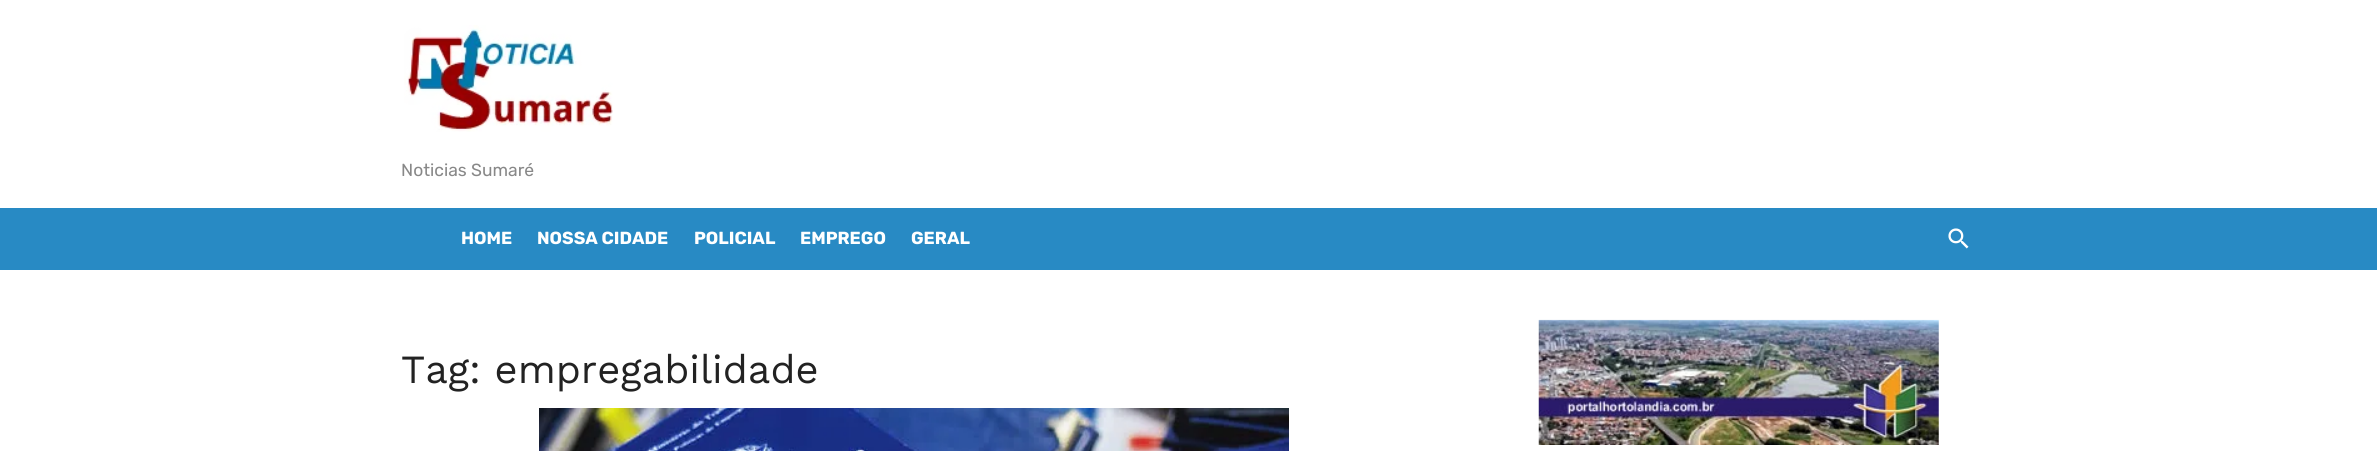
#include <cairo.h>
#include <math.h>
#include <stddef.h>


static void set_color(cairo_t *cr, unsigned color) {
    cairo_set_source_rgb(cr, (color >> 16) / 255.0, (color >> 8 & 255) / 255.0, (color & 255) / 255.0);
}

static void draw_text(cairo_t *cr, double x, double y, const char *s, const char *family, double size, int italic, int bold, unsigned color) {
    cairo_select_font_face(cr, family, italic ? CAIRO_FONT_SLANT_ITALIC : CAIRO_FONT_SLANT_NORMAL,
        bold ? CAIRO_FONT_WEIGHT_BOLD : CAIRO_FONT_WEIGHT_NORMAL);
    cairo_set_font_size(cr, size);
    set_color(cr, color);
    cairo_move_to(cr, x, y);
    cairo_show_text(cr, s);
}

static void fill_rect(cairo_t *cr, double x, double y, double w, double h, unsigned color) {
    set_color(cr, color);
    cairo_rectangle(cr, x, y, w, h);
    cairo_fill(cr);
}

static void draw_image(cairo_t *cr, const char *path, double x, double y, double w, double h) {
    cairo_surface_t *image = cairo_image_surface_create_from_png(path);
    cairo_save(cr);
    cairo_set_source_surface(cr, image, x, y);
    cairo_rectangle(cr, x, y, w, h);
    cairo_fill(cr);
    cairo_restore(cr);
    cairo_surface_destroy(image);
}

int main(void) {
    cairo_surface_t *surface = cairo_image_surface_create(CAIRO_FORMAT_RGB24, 2377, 451);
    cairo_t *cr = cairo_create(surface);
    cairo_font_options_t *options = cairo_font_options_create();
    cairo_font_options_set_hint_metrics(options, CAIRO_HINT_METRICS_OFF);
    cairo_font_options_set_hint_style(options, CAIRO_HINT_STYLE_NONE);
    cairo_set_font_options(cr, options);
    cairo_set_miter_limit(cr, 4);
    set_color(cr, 0xFFFFFF);
    cairo_paint(cr);
    draw_image(cr, "assets/img1.png", 404, 25, 209, 107);
    draw_text(cr, 401, 176, "Noticias Sumaré", "Rubik", 17.5, 0, 0, 0x888888);
    fill_rect(cr, 0, 208, 2377, 62, 0x288AC4);
    draw_text(cr, 461, 244, "HOME", "Rubik", 17.5, 0, 1, 0xFFFFFF);
    draw_text(cr, 537, 244, "NOSSA CIDADE", "Rubik", 17.5, 0, 1, 0xFFFFFF);
    draw_text(cr, 694, 244, "POLICIAL", "Rubik", 17.5, 0, 1, 0xFFFFFF);
    draw_text(cr, 800, 244, "EMPREGO", "Rubik", 17.5, 0, 1, 0xFFFFFF);
    draw_text(cr, 911, 244, "GERAL", "Rubik", 17.5, 0, 1, 0xFFFFFF);
    draw_image(cr, "assets/img2.png", 1948, 228, 21, 21);
    draw_text(cr, 401, 383, "Tag: empregabilidade", "Work Sans", 40, 0, 0, 0x222222);
    draw_image(cr, "assets/img3.png", 539, 408, 750, 43);
    draw_image(cr, "assets/img4.png", 1538, 319, 401, 126);
    cairo_surface_write_to_png(surface, "output.png");
    cairo_font_options_destroy(options);
    cairo_destroy(cr);
    cairo_surface_destroy(surface);
    return 0;
}
